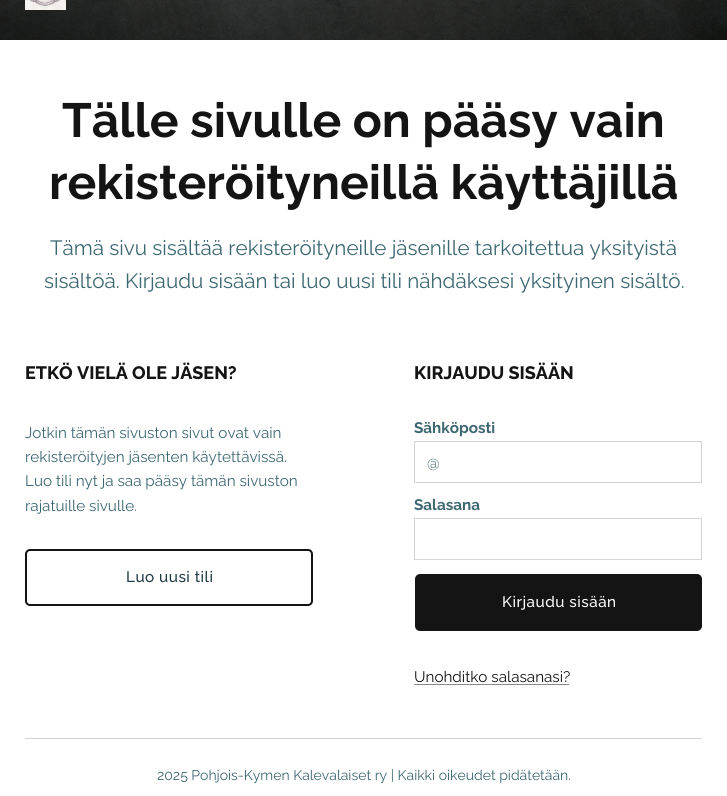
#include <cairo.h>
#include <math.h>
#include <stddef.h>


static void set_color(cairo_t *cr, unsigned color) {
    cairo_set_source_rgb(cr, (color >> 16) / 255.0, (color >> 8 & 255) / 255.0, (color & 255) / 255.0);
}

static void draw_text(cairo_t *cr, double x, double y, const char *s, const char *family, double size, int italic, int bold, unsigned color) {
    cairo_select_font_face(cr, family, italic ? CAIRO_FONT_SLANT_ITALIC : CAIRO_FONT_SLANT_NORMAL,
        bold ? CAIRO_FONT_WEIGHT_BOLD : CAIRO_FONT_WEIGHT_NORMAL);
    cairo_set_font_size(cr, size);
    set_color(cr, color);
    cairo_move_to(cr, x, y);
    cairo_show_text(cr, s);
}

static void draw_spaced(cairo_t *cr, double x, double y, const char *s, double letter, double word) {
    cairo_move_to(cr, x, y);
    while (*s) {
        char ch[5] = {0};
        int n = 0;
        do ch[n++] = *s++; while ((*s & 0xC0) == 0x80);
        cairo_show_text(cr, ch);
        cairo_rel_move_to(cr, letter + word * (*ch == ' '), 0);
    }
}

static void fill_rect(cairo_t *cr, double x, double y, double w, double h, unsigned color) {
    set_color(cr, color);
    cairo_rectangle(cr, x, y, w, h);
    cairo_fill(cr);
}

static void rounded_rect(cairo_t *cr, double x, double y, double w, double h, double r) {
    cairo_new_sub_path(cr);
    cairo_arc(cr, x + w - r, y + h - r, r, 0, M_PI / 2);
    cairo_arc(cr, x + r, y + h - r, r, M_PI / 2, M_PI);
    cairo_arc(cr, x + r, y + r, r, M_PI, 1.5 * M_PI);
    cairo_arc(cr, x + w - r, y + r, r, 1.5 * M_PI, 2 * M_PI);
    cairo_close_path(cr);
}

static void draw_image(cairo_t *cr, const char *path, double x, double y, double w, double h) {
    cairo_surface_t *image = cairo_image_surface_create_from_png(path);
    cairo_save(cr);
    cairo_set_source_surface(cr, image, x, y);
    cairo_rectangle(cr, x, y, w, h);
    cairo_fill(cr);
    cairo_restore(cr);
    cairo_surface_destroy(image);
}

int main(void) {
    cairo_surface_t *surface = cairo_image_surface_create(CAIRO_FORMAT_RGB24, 727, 796);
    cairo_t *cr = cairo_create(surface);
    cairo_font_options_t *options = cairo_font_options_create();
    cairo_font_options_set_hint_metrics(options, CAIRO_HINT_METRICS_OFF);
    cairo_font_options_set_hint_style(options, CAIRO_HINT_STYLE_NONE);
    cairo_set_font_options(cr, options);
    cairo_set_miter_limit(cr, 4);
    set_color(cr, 0xFFFFFF);
    cairo_paint(cr);
    draw_image(cr, "assets/img1.png", 0, 0, 727, 40);
    draw_image(cr, "assets/img2.png", 25, 0, 41, 10);
    draw_text(cr, 62, 137, "Tälle sivulle on pääsy vain", "Raleway", 48, 0, 1, 0x141414);
    draw_text(cr, 49, 199, "rekisteröityneillä käyttäjillä", "Raleway", 48, 0, 1, 0x141414);
    draw_text(cr, 50, 255, "Tämä sivu sisältää rekisteröityneille jäsenille tarkoitettua yksityistä", "Raleway", 20.65, 0, 0, 0x3D6872);
    draw_text(cr, 44, 288, "sisältöä. Kirjaudu sisään tai luo uusi tili nähdäksesi yksityinen sisältö.", "Raleway", 20.65, 0, 0, 0x3D6872);
    draw_text(cr, 25, 379, "ETKÖ VIELÄ OLE JÄSEN?", "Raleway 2", 18, 0, 1, 0x141414);
    draw_text(cr, 25, 438, "Jotkin tämän sivuston sivut ovat vain", "Raleway", 15.25, 0, 0, 0x3D6872);
    draw_text(cr, 25, 462, "rekisteröityjen jäsenten käytettävissä.", "Raleway", 15.25, 0, 0, 0x3D6872);
    draw_text(cr, 25, 486, "Luo tili nyt ja saa pääsy tämän sivuston", "Raleway", 15.25, 0, 0, 0x3D6872);
    draw_text(cr, 25, 511, "rajatuille sivulle.", "Raleway", 15.25, 0, 0, 0x3D6872);
    rounded_rect(cr, 26, 550, 286, 55, 4);
    set_color(cr, 0x141414);
    cairo_stroke(cr);
    cairo_select_font_face(cr, "Raleway Medium", CAIRO_FONT_SLANT_NORMAL, CAIRO_FONT_WEIGHT_NORMAL);
    set_color(cr, 0x213A43);
    draw_spaced(cr, 126, 582, "Luo uusi tili", 0.5, 0);
    draw_text(cr, 414, 379, "KIRJAUDU SISÄÄN", "Raleway 2", 18, 0, 1, 0x141414);
    draw_text(cr, 414, 433, "Sähköposti", "Raleway", 15.25, 0, 1, 0x3D6872);
    cairo_rectangle(cr, 414.5, 441.5, 287, 41);
    set_color(cr, 0xD4D4D4);
    cairo_set_line_width(cr, 1);
    cairo_stroke(cr);
    draw_text(cr, 427, 468, "@", "Raleway 2", 15.25, 0, 0, 0x64868E);
    draw_text(cr, 414, 510, "Salasana", "Raleway", 15.25, 0, 1, 0x3D6872);
    cairo_rectangle(cr, 414.5, 518.5, 287, 41);
    set_color(cr, 0xD4D4D4);
    cairo_stroke(cr);
    set_color(cr, 0x141414);
    rounded_rect(cr, 416, 575, 285, 55, 4);
    cairo_fill_preserve(cr);
    cairo_set_line_width(cr, 2);
    cairo_stroke(cr);
    cairo_select_font_face(cr, "Raleway Medium", CAIRO_FONT_SLANT_NORMAL, CAIRO_FONT_WEIGHT_NORMAL);
    set_color(cr, 0xFFFFFF);
    draw_spaced(cr, 502, 607, "Kirjaudu sisään", 0.5, 0);
    draw_text(cr, 414, 682, "Unohditko salasanasi?", "Raleway", 15.25, 0, 0, 0x141414);
    fill_rect(cr, 414, 684, 155, 1, 0x8A8A8A);
    fill_rect(cr, 25, 738, 677, 1, 0xD4D4D4);
    draw_text(cr, 157, 780, "2025 Pohjois-Kymen Kalevalaiset ry | Kaikki oikeudet pidätetään.", "Raleway", 14, 0, 0, 0x3D6872);
    cairo_surface_write_to_png(surface, "output.png");
    cairo_font_options_destroy(options);
    cairo_destroy(cr);
    cairo_surface_destroy(surface);
    return 0;
}
